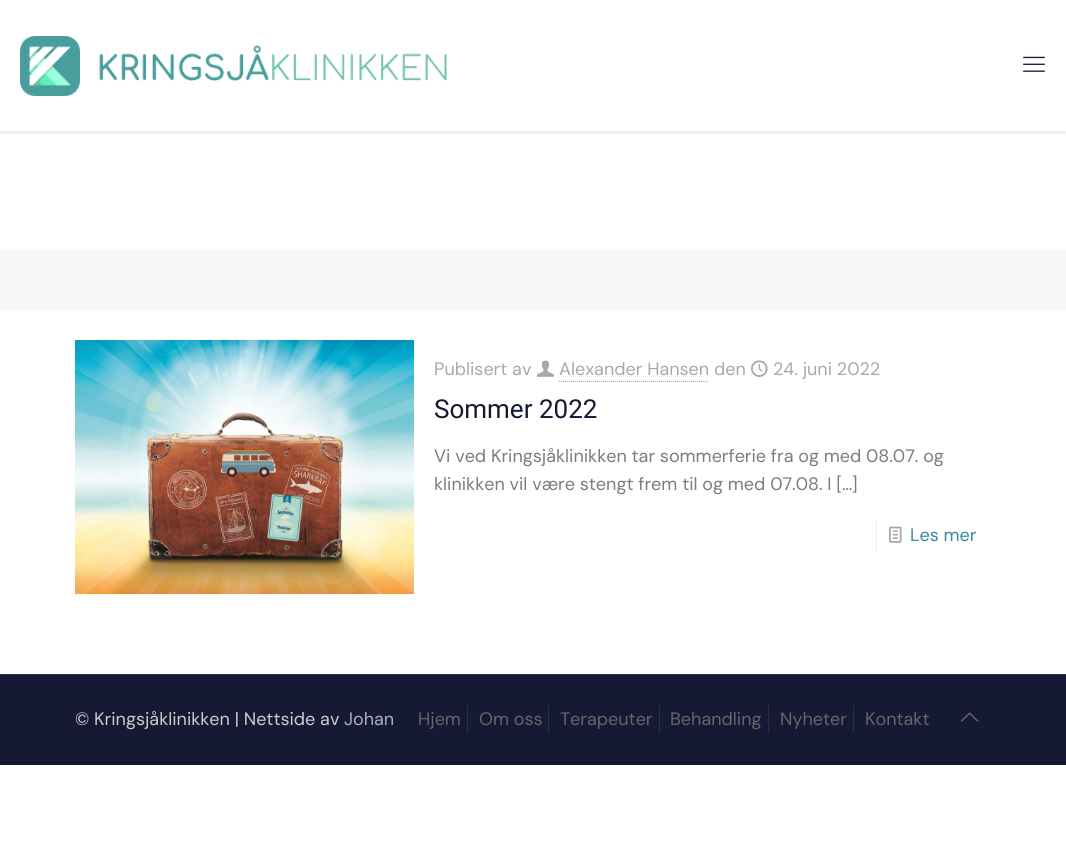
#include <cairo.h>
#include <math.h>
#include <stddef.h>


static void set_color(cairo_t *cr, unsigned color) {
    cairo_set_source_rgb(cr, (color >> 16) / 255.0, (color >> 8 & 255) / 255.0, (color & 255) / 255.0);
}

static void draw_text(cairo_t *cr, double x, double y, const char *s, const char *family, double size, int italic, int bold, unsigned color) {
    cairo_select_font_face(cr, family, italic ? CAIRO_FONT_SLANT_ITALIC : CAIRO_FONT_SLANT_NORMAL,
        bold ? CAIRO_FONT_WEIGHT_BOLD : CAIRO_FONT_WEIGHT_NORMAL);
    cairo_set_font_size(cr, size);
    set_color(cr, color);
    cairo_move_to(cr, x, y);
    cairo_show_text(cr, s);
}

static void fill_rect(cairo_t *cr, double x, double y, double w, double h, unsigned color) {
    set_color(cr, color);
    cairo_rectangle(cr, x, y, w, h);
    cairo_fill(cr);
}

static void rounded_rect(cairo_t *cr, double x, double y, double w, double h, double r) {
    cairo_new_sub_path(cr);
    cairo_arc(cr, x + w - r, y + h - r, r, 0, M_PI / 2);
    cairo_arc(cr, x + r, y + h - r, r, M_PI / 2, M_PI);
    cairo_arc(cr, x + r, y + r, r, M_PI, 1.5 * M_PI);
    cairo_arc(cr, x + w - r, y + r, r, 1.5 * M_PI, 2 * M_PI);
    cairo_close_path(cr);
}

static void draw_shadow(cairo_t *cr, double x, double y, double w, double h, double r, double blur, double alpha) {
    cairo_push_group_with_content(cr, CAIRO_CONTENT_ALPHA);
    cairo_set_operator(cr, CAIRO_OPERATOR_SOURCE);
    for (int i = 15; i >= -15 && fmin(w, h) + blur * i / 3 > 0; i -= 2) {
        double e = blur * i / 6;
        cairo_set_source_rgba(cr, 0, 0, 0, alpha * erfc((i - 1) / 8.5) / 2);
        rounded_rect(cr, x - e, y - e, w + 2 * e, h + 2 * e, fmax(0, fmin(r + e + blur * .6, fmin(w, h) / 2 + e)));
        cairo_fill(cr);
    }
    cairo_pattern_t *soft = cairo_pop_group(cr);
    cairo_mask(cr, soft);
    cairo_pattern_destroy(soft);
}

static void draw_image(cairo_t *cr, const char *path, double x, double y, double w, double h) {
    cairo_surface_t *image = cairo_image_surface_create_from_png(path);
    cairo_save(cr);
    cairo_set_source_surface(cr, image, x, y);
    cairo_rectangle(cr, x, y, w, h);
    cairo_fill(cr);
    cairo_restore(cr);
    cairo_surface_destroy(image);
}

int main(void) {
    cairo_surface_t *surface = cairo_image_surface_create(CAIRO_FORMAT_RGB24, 1066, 865);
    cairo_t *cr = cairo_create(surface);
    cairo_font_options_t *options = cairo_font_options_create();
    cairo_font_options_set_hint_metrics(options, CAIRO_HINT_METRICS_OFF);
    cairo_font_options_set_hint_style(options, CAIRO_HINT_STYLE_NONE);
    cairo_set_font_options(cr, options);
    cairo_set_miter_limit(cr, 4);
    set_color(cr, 0xFFFFFF);
    cairo_paint(cr);
    cairo_save(cr);
    cairo_rectangle(cr, 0, 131, 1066, 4);
    cairo_clip(cr);
    set_color(cr, 0x080808);
    draw_shadow(cr, 0, 2, 1066, 131, 0, 2.5, 0.1);
    cairo_restore(cr);
    draw_image(cr, "assets/img1.png", 20, 36, 427, 60);
    draw_image(cr, "assets/img2.png", 1023, 56, 22, 16);
    fill_rect(cr, 0, 250, 1066, 60, 0xF7F7F7);
    draw_image(cr, "assets/img3.png", 75, 340, 339, 254);
    draw_text(cr, 434, 375, "Publisert av", "DM Sans", 18, 0, 0, 0xA8A8A8);
    draw_image(cr, "assets/img4.png", 537, 360, 17, 17);
    draw_text(cr, 559, 375, "Alexander Hansen den", "DM Sans", 18, 0, 0, 0xA8A8A8);
    cairo_new_path(cr);
    cairo_move_to(cr, 559, 381.5);
    cairo_line_to(cr, 709, 381.5);
    cairo_set_line_width(cr, 1);
    cairo_set_dash(cr, (double[]){1, 1}, 2, 0);
    cairo_stroke(cr);
    draw_image(cr, "assets/img5.png", 751, 360, 17, 17);
    draw_text(cr, 773, 375, "24. juni 2022", "DM Sans", 18, 0, 0, 0xA8A8A8);
    draw_text(cr, 434, 418, "Sommer 2022", "Roboto", 26, 0, 0, 0x151933);
    draw_text(cr, 434, 462, "Vi ved Kringsjåklinikken tar sommerferie fra og med 08.07. og", "DM Sans", 18, 0, 0, 0x7A7B84);
    draw_text(cr, 434, 490, "klinikken vil være stengt frem til og med 07.08. I […]", "DM Sans", 18, 0, 0, 0x7A7B84);
    fill_rect(cr, 876, 520, 1, 30, 0xEBEBEB);
    draw_image(cr, "assets/img6.png", 889, 526, 13, 17);
    draw_text(cr, 910, 541, "Les mer", "DM Sans", 18, 0, 0, 0x388B9B);
    fill_rect(cr, 0, 675, 1066, 90, 0x151933);
    fill_rect(cr, 0, 674, 1066, 1, 0x2C3047);
    draw_text(cr, 75, 725, "© Kringsjåklinikken | Nettside av", "DM Sans", 18, 0, 0, 0xCCCCCC);
    draw_text(cr, 344, 725, "Johan", "DM Sans", 18, 0, 0, 0xABAEC2);
    fill_rect(cr, 467, 705, 1, 28, 0x2C3047);
    draw_text(cr, 418, 725, "Hjem", "DM Sans", 18, 0, 0, 0x65666C);
    fill_rect(cr, 548, 705, 1, 28, 0x2C3047);
    draw_text(cr, 479, 725, "Om oss", "DM Sans", 18, 0, 0, 0x65666C);
    fill_rect(cr, 659, 705, 1, 28, 0x2C3047);
    draw_text(cr, 560, 725, "Terapeuter", "DM Sans", 18, 0, 0, 0x65666C);
    fill_rect(cr, 768, 705, 1, 28, 0x2C3047);
    draw_text(cr, 670, 725, "Behandling", "DM Sans", 18, 0, 0, 0x65666C);
    fill_rect(cr, 853, 705, 1, 28, 0x2C3047);
    draw_text(cr, 780, 725, "Nyheter", "DM Sans", 18, 0, 0, 0x65666C);
    draw_text(cr, 865, 725, "Kontakt", "DM Sans", 18, 0, 0, 0x65666C);
    draw_image(cr, "assets/img7.png", 961, 712, 18, 10);
    cairo_surface_write_to_png(surface, "output.png");
    cairo_font_options_destroy(options);
    cairo_destroy(cr);
    cairo_surface_destroy(surface);
    return 0;
}
